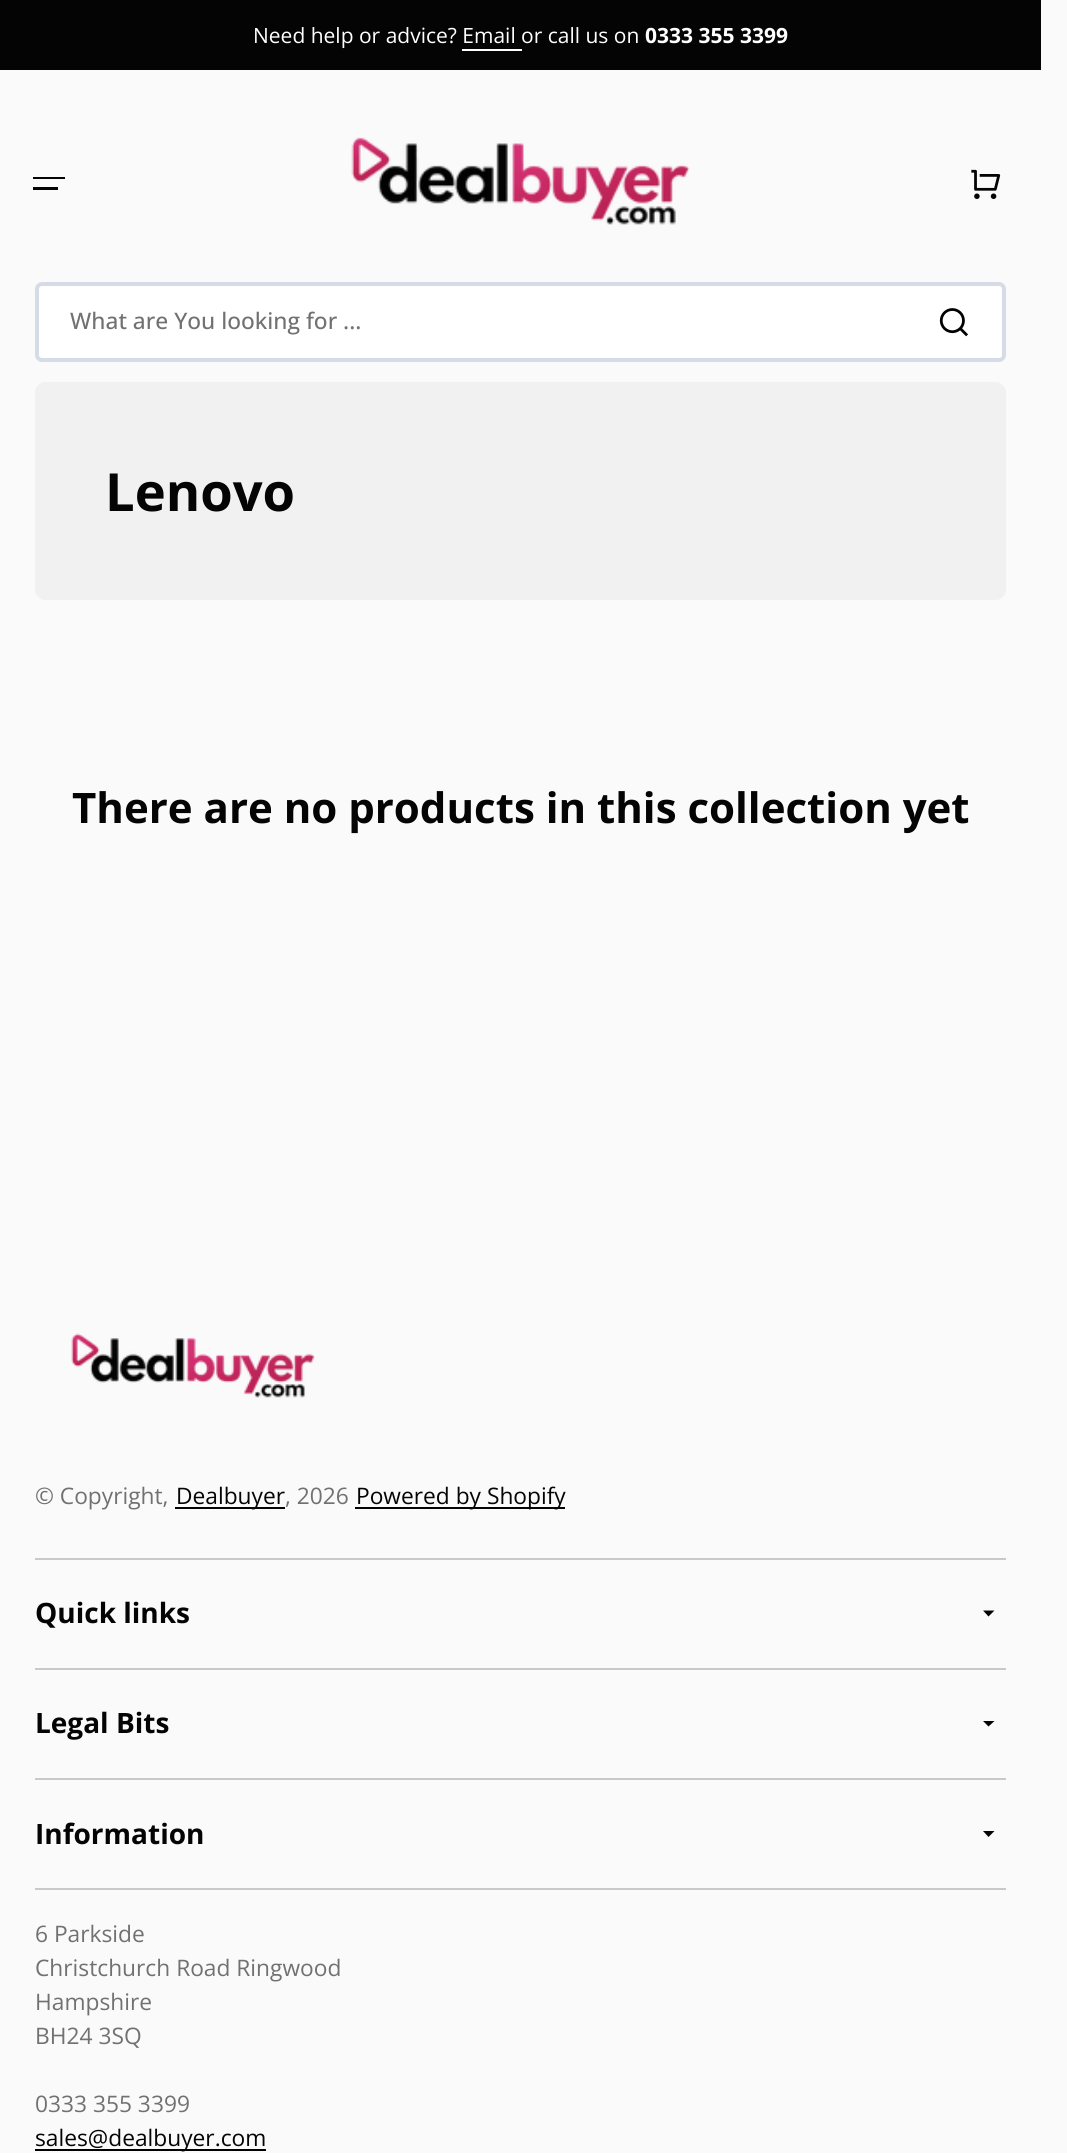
#include <cairo.h>
#include <math.h>
#include <stddef.h>


static void set_color(cairo_t *cr, unsigned color) {
    cairo_set_source_rgb(cr, (color >> 16) / 255.0, (color >> 8 & 255) / 255.0, (color & 255) / 255.0);
}

static void draw_text(cairo_t *cr, double x, double y, const char *s, const char *family, double size, int italic, int bold, unsigned color) {
    cairo_select_font_face(cr, family, italic ? CAIRO_FONT_SLANT_ITALIC : CAIRO_FONT_SLANT_NORMAL,
        bold ? CAIRO_FONT_WEIGHT_BOLD : CAIRO_FONT_WEIGHT_NORMAL);
    cairo_set_font_size(cr, size);
    set_color(cr, color);
    cairo_move_to(cr, x, y);
    cairo_show_text(cr, s);
}

static void fill_rect(cairo_t *cr, double x, double y, double w, double h, unsigned color) {
    set_color(cr, color);
    cairo_rectangle(cr, x, y, w, h);
    cairo_fill(cr);
}

static void rounded_rect(cairo_t *cr, double x, double y, double w, double h, double r) {
    cairo_new_sub_path(cr);
    cairo_arc(cr, x + w - r, y + h - r, r, 0, M_PI / 2);
    cairo_arc(cr, x + r, y + h - r, r, M_PI / 2, M_PI);
    cairo_arc(cr, x + r, y + r, r, M_PI, 1.5 * M_PI);
    cairo_arc(cr, x + w - r, y + r, r, 1.5 * M_PI, 2 * M_PI);
    cairo_close_path(cr);
}

static void draw_image(cairo_t *cr, const char *path, double x, double y, double w, double h) {
    cairo_surface_t *image = cairo_image_surface_create_from_png(path);
    cairo_save(cr);
    cairo_set_source_surface(cr, image, x, y);
    cairo_rectangle(cr, x, y, w, h);
    cairo_fill(cr);
    cairo_restore(cr);
    cairo_surface_destroy(image);
}

int main(void) {
    cairo_surface_t *surface = cairo_image_surface_create(CAIRO_FORMAT_RGB24, 1067, 2153);
    cairo_t *cr = cairo_create(surface);
    cairo_font_options_t *options = cairo_font_options_create();
    cairo_font_options_set_hint_metrics(options, CAIRO_HINT_METRICS_OFF);
    cairo_font_options_set_hint_style(options, CAIRO_HINT_STYLE_NONE);
    cairo_set_font_options(cr, options);
    cairo_set_miter_limit(cr, 4);
    set_color(cr, 0xFAFAFA);
    cairo_paint(cr);
    fill_rect(cr, 0, 0, 1041, 70, 0x040404);
    draw_text(cr, 253, 43, "Need help or advice? Email", "Open Sans", 21, 0, 0, 0xFFFFFF);
    draw_text(cr, 521, 43, "or call us on", "Open Sans", 21, 0, 0, 0xFFFFFF);
    draw_text(cr, 645, 43, "0333 355 3399", "Open Sans", 21, 0, 1, 0xFFFFFF);
    fill_rect(cr, 462, 49, 60, 2, 0xFFFFFF);
    fill_rect(cr, 33, 177, 32, 2, 0x040404);
    fill_rect(cr, 33, 187, 25, 3, 0x040404);
    draw_image(cr, "assets/img1.png", 351, 137, 339, 88);
    draw_image(cr, "assets/img2.png", 971, 169, 30, 30);
    set_color(cr, 0xFFFFFF);
    rounded_rect(cr, 37, 284, 967, 76, 5);
    cairo_fill_preserve(cr);
    set_color(cr, 0xD5DCE7);
    cairo_set_line_width(cr, 4);
    cairo_stroke(cr);
    draw_text(cr, 70, 329, "What are You looking for ...", "Open Sans Medium", 22.75, 0, 0, 0x717171);
    draw_image(cr, "assets/img3.png", 939, 308, 29, 29);
    set_color(cr, 0xE7E7E7);
    rounded_rect(cr, 35, 382, 971, 218, 11);
    cairo_fill(cr);
    cairo_set_source_rgba(cr, 1, 1, 1, 0.4);
    rounded_rect(cr, 35, 382, 971, 218, 11);
    cairo_fill(cr);
    draw_text(cr, 105, 511, "Lenovo", "Open Sans", 52.5, 0, 1, 0x040404);
    draw_text(cr, 72, 823, "There are no products in this collection yet", "Open Sans", 42, 0, 1, 0x040404);
    draw_image(cr, "assets/img4.png", 71, 1333, 244, 65);
    draw_text(cr, 35, 1504, "© Copyright,", "Open Sans", 22.75, 0, 0, 0x717171);
    fill_rect(cr, 175, 1507, 110, 2, 0x040404);
    draw_text(cr, 176, 1504, "Dealbuyer", "Open Sans", 22.75, 0, 0, 0x040404);
    draw_text(cr, 285, 1504, ", 2026", "Open Sans", 22.75, 0, 0, 0x717171);
    fill_rect(cr, 355, 1507, 210, 2, 0x040404);
    draw_text(cr, 356, 1504, "Powered by Shopify", "Open Sans", 22.75, 0, 0, 0x040404);
    fill_rect(cr, 35, 1558, 971, 2, 0xC9C9C9);
    fill_rect(cr, 35, 1668, 971, 2, 0xC9C9C9);
    draw_text(cr, 35, 1623, "Quick links", "Open Sans", 28, 0, 1, 0x040404);
    cairo_new_path(cr);
    cairo_move_to(cr, 988.5, 1616.5);
    cairo_line_to(cr, 983, 1610.5);
    cairo_line_to(cr, 994.5, 1610.5);
    cairo_close_path(cr);
    cairo_fill(cr);
    fill_rect(cr, 35, 1778, 971, 2, 0xC9C9C9);
    draw_text(cr, 35, 1733, "Legal Bits", "Open Sans", 28, 0, 1, 0x040404);
    cairo_new_path(cr);
    cairo_move_to(cr, 988.5, 1726.5);
    cairo_line_to(cr, 983, 1721);
    cairo_line_to(cr, 994.5, 1721);
    cairo_close_path(cr);
    cairo_fill(cr);
    fill_rect(cr, 35, 1888, 971, 2, 0xC9C9C9);
    draw_text(cr, 35, 1844, "Information", "Open Sans", 28, 0, 1, 0x040404);
    cairo_new_path(cr);
    cairo_move_to(cr, 988.5, 1837);
    cairo_line_to(cr, 983, 1831);
    cairo_line_to(cr, 994.5, 1831);
    cairo_close_path(cr);
    cairo_fill(cr);
    draw_text(cr, 35, 1942, "6 Parkside", "Open Sans", 22.75, 0, 0, 0x717171);
    draw_text(cr, 35, 1976, "Christchurch Road Ringwood", "Open Sans", 22.75, 0, 0, 0x717171);
    draw_text(cr, 35, 2010, "Hampshire", "Open Sans", 22.75, 0, 0, 0x717171);
    draw_text(cr, 35, 2044, "BH24 3SQ", "Open Sans", 22.75, 0, 0, 0x717171);
    draw_text(cr, 35, 2112, "0333 355 3399", "Open Sans", 22.75, 0, 0, 0x717171);
    fill_rect(cr, 35, 2149, 231, 2, 0x000000);
    draw_text(cr, 35, 2146, "sales@dealbuyer.com", "Open Sans", 22.75, 0, 0, 0x040404);
    cairo_surface_write_to_png(surface, "output.png");
    cairo_font_options_destroy(options);
    cairo_destroy(cr);
    cairo_surface_destroy(surface);
    return 0;
}
